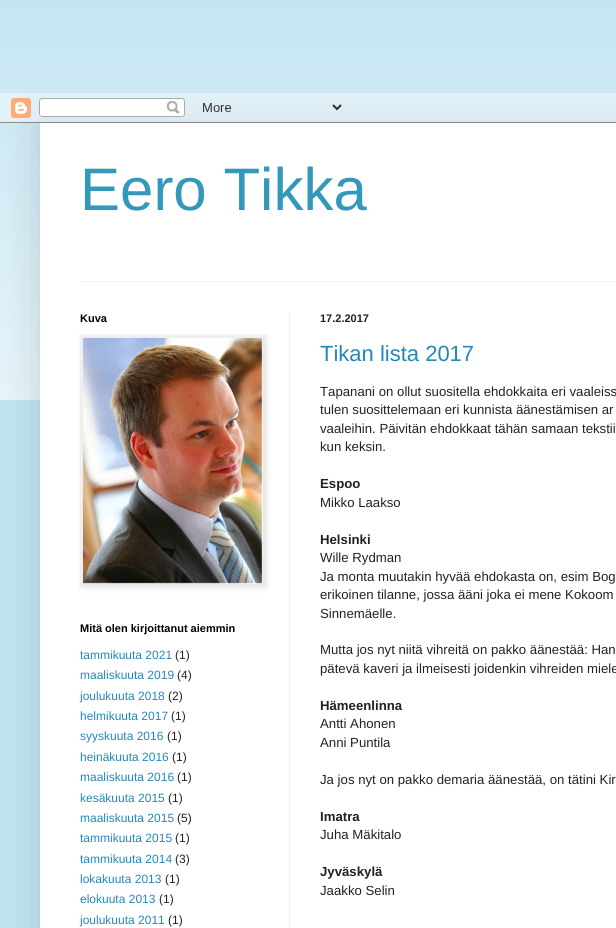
#include <cairo.h>
#include <math.h>
#include <stddef.h>


static void set_color(cairo_t *cr, unsigned color) {
    cairo_set_source_rgb(cr, (color >> 16) / 255.0, (color >> 8 & 255) / 255.0, (color & 255) / 255.0);
}

static void draw_text(cairo_t *cr, double x, double y, const char *s, const char *family, double size, int italic, int bold, unsigned color) {
    cairo_select_font_face(cr, family, italic ? CAIRO_FONT_SLANT_ITALIC : CAIRO_FONT_SLANT_NORMAL,
        bold ? CAIRO_FONT_WEIGHT_BOLD : CAIRO_FONT_WEIGHT_NORMAL);
    cairo_set_font_size(cr, size);
    set_color(cr, color);
    cairo_move_to(cr, x, y);
    cairo_show_text(cr, s);
}

static void fill_rect(cairo_t *cr, double x, double y, double w, double h, unsigned color) {
    set_color(cr, color);
    cairo_rectangle(cr, x, y, w, h);
    cairo_fill(cr);
}

static void rounded_rect(cairo_t *cr, double x, double y, double w, double h, double r) {
    cairo_new_sub_path(cr);
    cairo_arc(cr, x + w - r, y + h - r, r, 0, M_PI / 2);
    cairo_arc(cr, x + r, y + h - r, r, M_PI / 2, M_PI);
    cairo_arc(cr, x + r, y + r, r, M_PI, 1.5 * M_PI);
    cairo_arc(cr, x + w - r, y + r, r, 1.5 * M_PI, 2 * M_PI);
    cairo_close_path(cr);
}

static void draw_shadow(cairo_t *cr, double x, double y, double w, double h, double r, double blur, double alpha) {
    cairo_push_group_with_content(cr, CAIRO_CONTENT_ALPHA);
    cairo_set_operator(cr, CAIRO_OPERATOR_SOURCE);
    for (int i = 15; i >= -15 && fmin(w, h) + blur * i / 3 > 0; i -= 2) {
        double e = blur * i / 6;
        cairo_set_source_rgba(cr, 0, 0, 0, alpha * erfc((i - 1) / 8.5) / 2);
        rounded_rect(cr, x - e, y - e, w + 2 * e, h + 2 * e, fmax(0, fmin(r + e + blur * .6, fmin(w, h) / 2 + e)));
        cairo_fill(cr);
    }
    cairo_pattern_t *soft = cairo_pop_group(cr);
    cairo_mask(cr, soft);
    cairo_pattern_destroy(soft);
}

static void draw_image(cairo_t *cr, const char *path, double x, double y, double w, double h) {
    cairo_surface_t *image = cairo_image_surface_create_from_png(path);
    cairo_save(cr);
    cairo_set_source_surface(cr, image, x, y);
    cairo_rectangle(cr, x, y, w, h);
    cairo_fill(cr);
    cairo_restore(cr);
    cairo_surface_destroy(image);
}

int main(void) {
    cairo_surface_t *surface = cairo_image_surface_create(CAIRO_FORMAT_RGB24, 616, 928);
    cairo_t *cr = cairo_create(surface);
    cairo_font_options_t *options = cairo_font_options_create();
    cairo_font_options_set_hint_metrics(options, CAIRO_HINT_METRICS_OFF);
    cairo_font_options_set_hint_style(options, CAIRO_HINT_STYLE_NONE);
    cairo_set_font_options(cr, options);
    cairo_set_miter_limit(cr, 4);
    set_color(cr, 0xC2E4F2);
    cairo_paint(cr);
    draw_image(cr, "assets/img1.png", 0, 10, 616, 390);
    set_color(cr, 0x000000);
    draw_shadow(cr, 40, 123, 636, 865, 0, 20, 0.15);
    draw_image(cr, "assets/img2.png", 0, 93, 616, 30);
    fill_rect(cr, 40, 123, 576, 805, 0xFFFFFF);
    draw_text(cr, 80, 210, "Eero Tikka", "Liberation Sans", 60, 0, 0, 0x3399BB);
    fill_rect(cr, 80, 281, 536, 1, 0xEEEEEE);
    fill_rect(cr, 289, 312, 1, 616, 0xEEEEEE);
    draw_text(cr, 80, 322, "Kuva", "Liberation Sans", 11, 0, 1, 0x000000);
    set_color(cr, 0x000000);
    draw_shadow(cr, 81, 336, 186, 252, 0, 2.5, 0.1);
    cairo_rectangle(cr, 80.5, 335.5, 185, 251);
    set_color(cr, 0xEEEEEE);
    cairo_set_line_width(cr, 1);
    cairo_stroke(cr);
    draw_image(cr, "assets/img3.png", 83, 338, 180, 246);
    draw_text(cr, 80, 632, "Mitä olen kirjoittanut aiemmin", "Liberation Sans", 11, 0, 1, 0x000000);
    draw_text(cr, 80, 659, "tammikuuta 2021", "Liberation Sans", 12, 0, 0, 0x2288BB);
    draw_text(cr, 175, 659, "(1)", "Liberation Sans", 12, 0, 0, 0x222222);
    draw_text(cr, 80, 679, "maaliskuuta 2019", "Liberation Sans", 12, 0, 0, 0x2288BB);
    draw_text(cr, 177, 679, "(4)", "Liberation Sans", 12, 0, 0, 0x222222);
    draw_text(cr, 80, 700, "joulukuuta 2018", "Liberation Sans", 12, 0, 0, 0x2288BB);
    draw_text(cr, 168, 700, "(2)", "Liberation Sans", 12, 0, 0, 0x222222);
    draw_text(cr, 80, 720, "helmikuuta 2017", "Liberation Sans", 12, 0, 0, 0x2288BB);
    draw_text(cr, 171, 720, "(1)", "Liberation Sans", 12, 0, 0, 0x222222);
    draw_text(cr, 80, 740, "syyskuuta 2016", "Liberation Sans", 12, 0, 0, 0x2288BB);
    draw_text(cr, 167, 740, "(1)", "Liberation Sans", 12, 0, 0, 0x222222);
    draw_text(cr, 80, 761, "heinäkuuta 2016", "Liberation Sans", 12, 0, 0, 0x2288BB);
    draw_text(cr, 172, 761, "(1)", "Liberation Sans", 12, 0, 0, 0x222222);
    draw_text(cr, 80, 781, "maaliskuuta 2016", "Liberation Sans", 12, 0, 0, 0x2288BB);
    draw_text(cr, 177, 781, "(1)", "Liberation Sans", 12, 0, 0, 0x222222);
    draw_text(cr, 80, 802, "kesäkuuta 2015", "Liberation Sans", 12, 0, 0, 0x2288BB);
    draw_text(cr, 168, 802, "(1)", "Liberation Sans", 12, 0, 0, 0x222222);
    draw_text(cr, 80, 822, "maaliskuuta 2015", "Liberation Sans", 12, 0, 0, 0x2288BB);
    draw_text(cr, 177, 822, "(5)", "Liberation Sans", 12, 0, 0, 0x222222);
    draw_text(cr, 80, 842, "tammikuuta 2015", "Liberation Sans", 12, 0, 0, 0x2288BB);
    draw_text(cr, 175, 842, "(1)", "Liberation Sans", 12, 0, 0, 0x222222);
    draw_text(cr, 80, 863, "tammikuuta 2014", "Liberation Sans", 12, 0, 0, 0x2288BB);
    draw_text(cr, 175, 863, "(3)", "Liberation Sans", 12, 0, 0, 0x222222);
    draw_text(cr, 80, 883, "lokakuuta 2013", "Liberation Sans", 12, 0, 0, 0x2288BB);
    draw_text(cr, 165, 883, "(1)", "Liberation Sans", 12, 0, 0, 0x222222);
    draw_text(cr, 80, 903, "elokuuta 2013", "Liberation Sans", 12, 0, 0, 0x2288BB);
    draw_text(cr, 159, 903, "(1)", "Liberation Sans", 12, 0, 0, 0x222222);
    draw_text(cr, 80, 924, "joulukuuta 2011", "Liberation Sans", 12, 0, 0, 0x2288BB);
    draw_text(cr, 168, 924, "(1)", "Liberation Sans", 12, 0, 0, 0x222222);
    draw_text(cr, 320, 322, "17.2.2017", "Liberation Sans", 11, 0, 1, 0x222222);
    draw_text(cr, 320, 361, "Tikan lista 2017", "Liberation Sans", 22, 0, 0, 0x2288BB);
    draw_text(cr, 320, 396, "Tapanani on ollut suositella ehdokkaita eri vaaleiss", "Liberation Sans", 13.2, 0, 0, 0x222222);
    draw_text(cr, 320, 414, "tulen suosittelemaan eri kunnista äänestämisen ar", "Liberation Sans", 13.2, 0, 0, 0x222222);
    draw_text(cr, 320, 433, "vaaleihin. Päivitän ehdokkaat tähän samaan tekstii", "Liberation Sans", 13.2, 0, 0, 0x222222);
    draw_text(cr, 320, 451, "kun keksin.", "Liberation Sans", 13.2, 0, 0, 0x222222);
    draw_text(cr, 320, 488, "Espoo", "Liberation Sans", 13.2, 0, 1, 0x222222);
    draw_text(cr, 320, 507, "Mikko Laakso", "Liberation Sans", 13.2, 0, 0, 0x222222);
    draw_text(cr, 320, 544, "Helsinki", "Liberation Sans", 13.2, 0, 1, 0x222222);
    draw_text(cr, 320, 562, "Wille Rydman", "Liberation Sans", 13.2, 0, 0, 0x222222);
    draw_text(cr, 320, 581, "Ja monta muutakin hyvää ehdokasta on, esim Bog", "Liberation Sans", 13.2, 0, 0, 0x222222);
    draw_text(cr, 320, 599, "erikoinen tilanne, jossa ääni joka ei mene Kokoom", "Liberation Sans", 13.2, 0, 0, 0x222222);
    draw_text(cr, 320, 618, "Sinnemäelle.", "Liberation Sans", 13.2, 0, 0, 0x222222);
    draw_text(cr, 320, 654, "Mutta jos nyt niitä vihreitä on pakko äänestää: Han", "Liberation Sans", 13.2, 0, 0, 0x222222);
    draw_text(cr, 320, 673, "pätevä kaveri ja ilmeisesti joidenkin vihreiden miele", "Liberation Sans", 13.2, 0, 0, 0x222222);
    draw_text(cr, 320, 710, "Hämeenlinna", "Liberation Sans", 13.2, 0, 1, 0x222222);
    draw_text(cr, 320, 728, "Antti Ahonen", "Liberation Sans", 13.2, 0, 0, 0x222222);
    draw_text(cr, 320, 747, "Anni Puntila", "Liberation Sans", 13.2, 0, 0, 0x222222);
    draw_text(cr, 320, 784, "Ja jos nyt on pakko demaria äänestää, on tätini Kir", "Liberation Sans", 13.2, 0, 0, 0x222222);
    draw_text(cr, 320, 821, "Imatra", "Liberation Sans", 13.2, 0, 1, 0x222222);
    draw_text(cr, 320, 839, "Juha Mäkitalo", "Liberation Sans", 13.2, 0, 0, 0x222222);
    draw_text(cr, 320, 876, "Jyväskylä", "Liberation Sans", 13.2, 0, 1, 0x222222);
    draw_text(cr, 320, 895, "Jaakko Selin", "Liberation Sans", 13.2, 0, 0, 0x222222);
    cairo_surface_write_to_png(surface, "output.png");
    cairo_font_options_destroy(options);
    cairo_destroy(cr);
    cairo_surface_destroy(surface);
    return 0;
}
